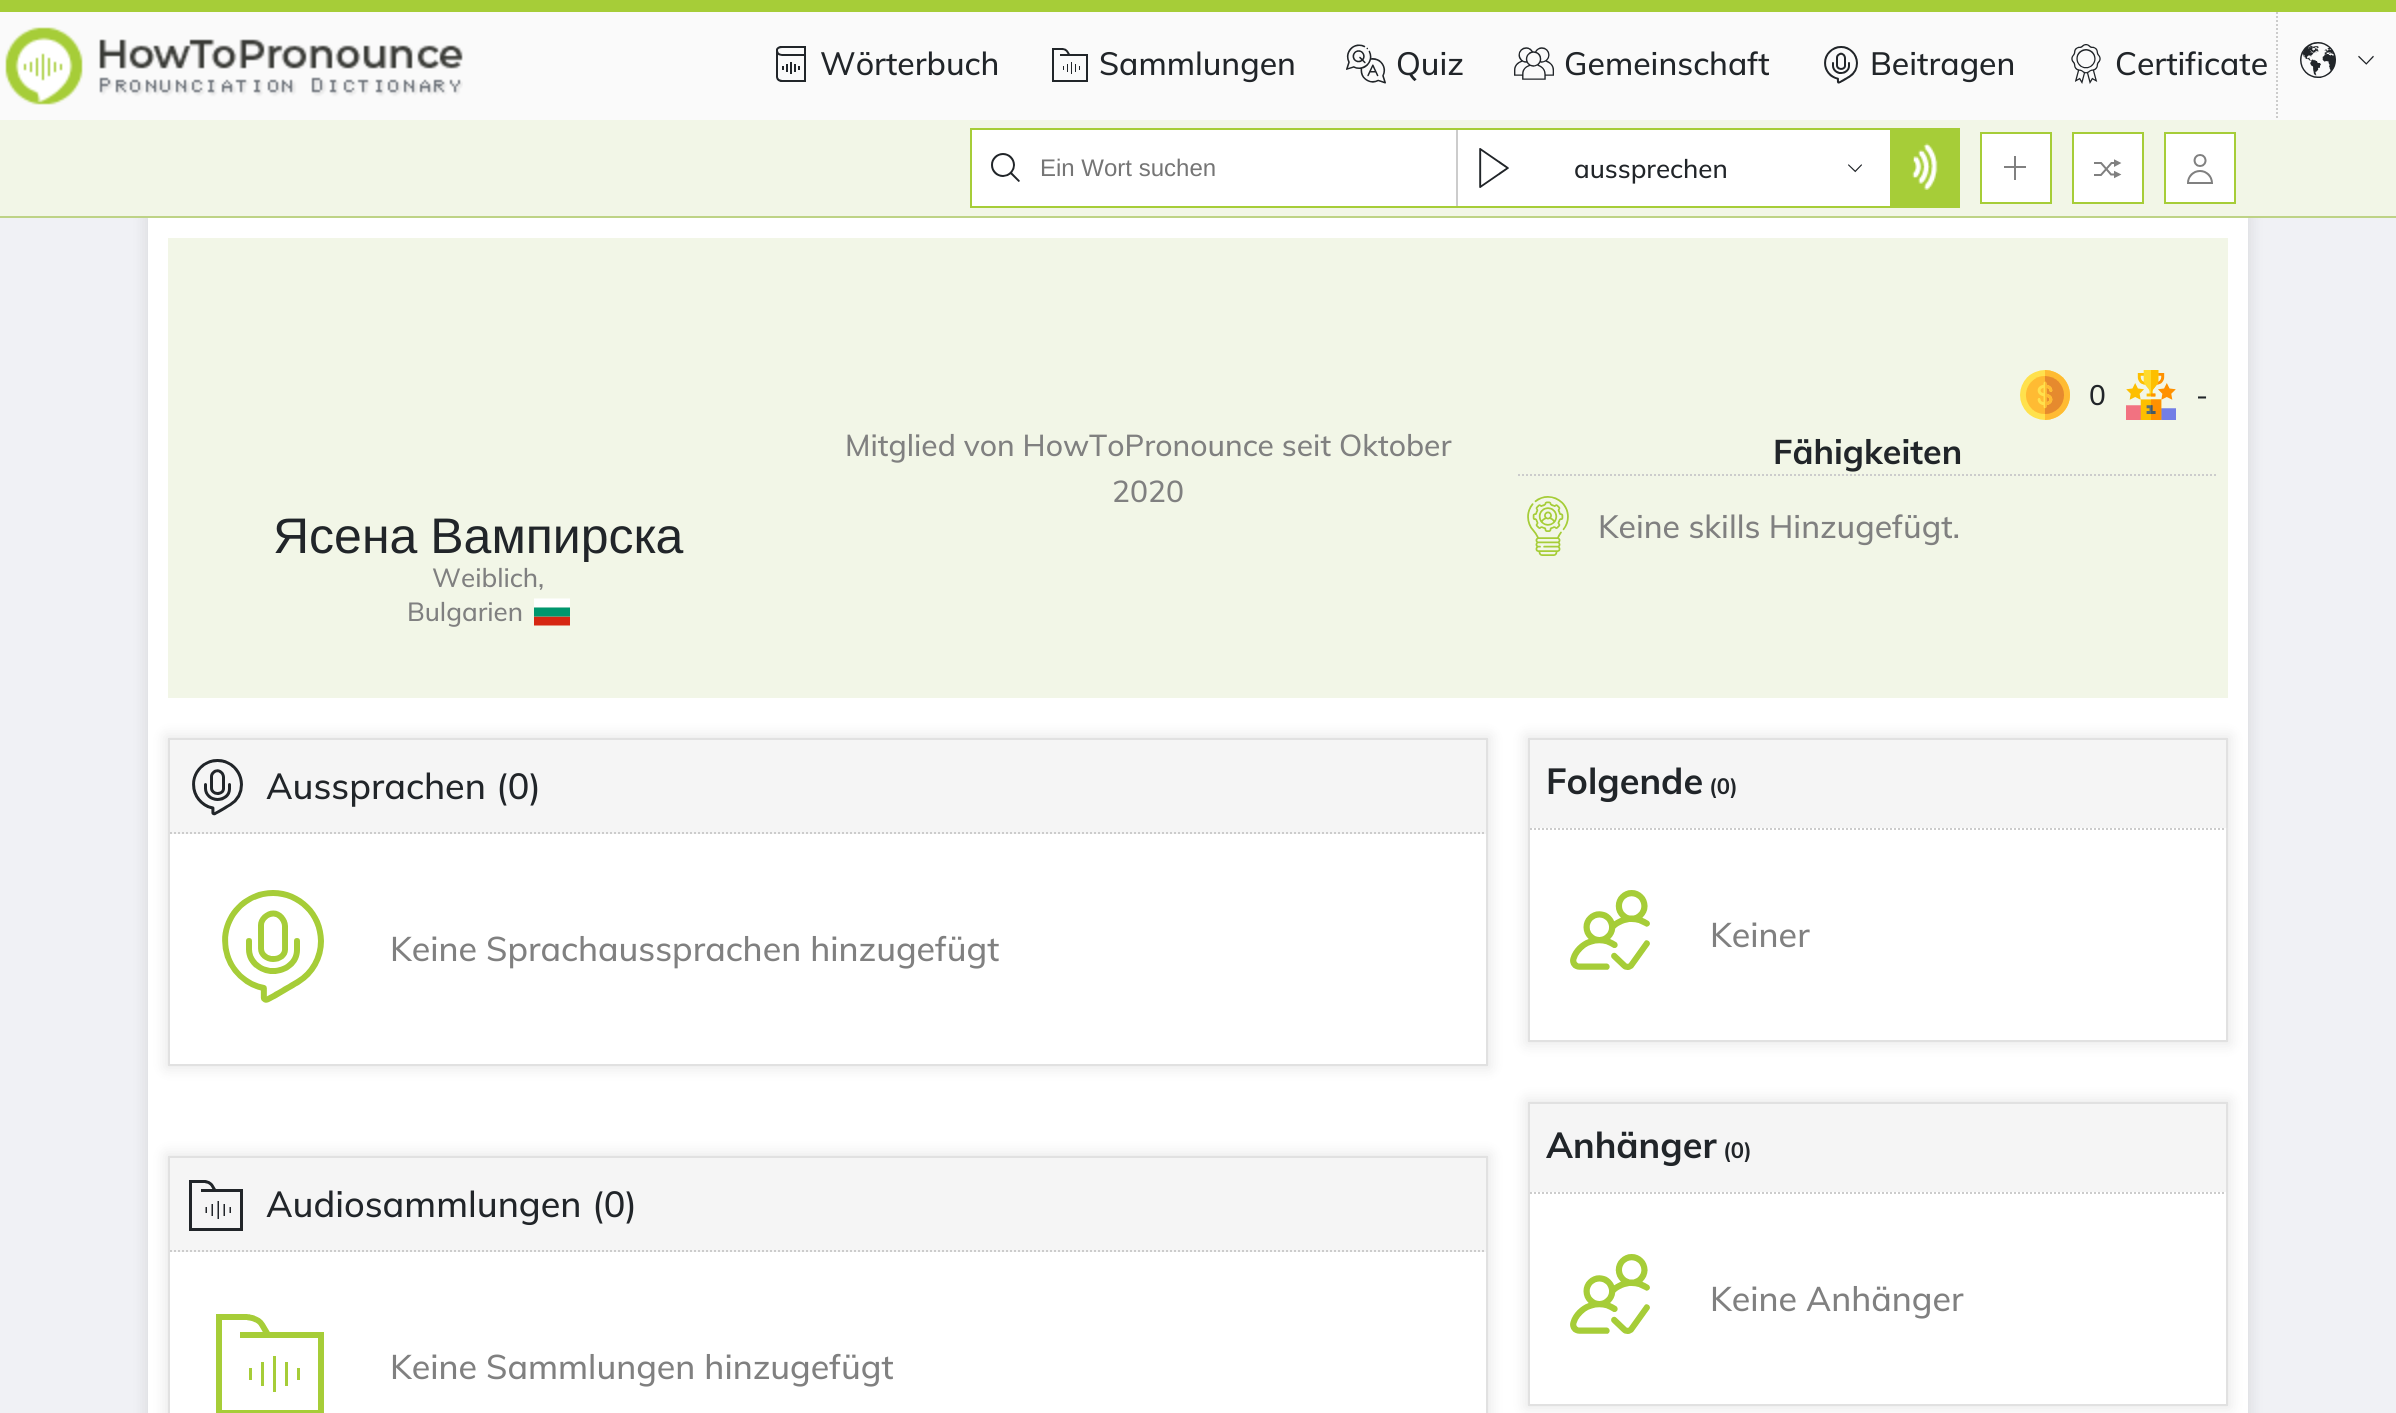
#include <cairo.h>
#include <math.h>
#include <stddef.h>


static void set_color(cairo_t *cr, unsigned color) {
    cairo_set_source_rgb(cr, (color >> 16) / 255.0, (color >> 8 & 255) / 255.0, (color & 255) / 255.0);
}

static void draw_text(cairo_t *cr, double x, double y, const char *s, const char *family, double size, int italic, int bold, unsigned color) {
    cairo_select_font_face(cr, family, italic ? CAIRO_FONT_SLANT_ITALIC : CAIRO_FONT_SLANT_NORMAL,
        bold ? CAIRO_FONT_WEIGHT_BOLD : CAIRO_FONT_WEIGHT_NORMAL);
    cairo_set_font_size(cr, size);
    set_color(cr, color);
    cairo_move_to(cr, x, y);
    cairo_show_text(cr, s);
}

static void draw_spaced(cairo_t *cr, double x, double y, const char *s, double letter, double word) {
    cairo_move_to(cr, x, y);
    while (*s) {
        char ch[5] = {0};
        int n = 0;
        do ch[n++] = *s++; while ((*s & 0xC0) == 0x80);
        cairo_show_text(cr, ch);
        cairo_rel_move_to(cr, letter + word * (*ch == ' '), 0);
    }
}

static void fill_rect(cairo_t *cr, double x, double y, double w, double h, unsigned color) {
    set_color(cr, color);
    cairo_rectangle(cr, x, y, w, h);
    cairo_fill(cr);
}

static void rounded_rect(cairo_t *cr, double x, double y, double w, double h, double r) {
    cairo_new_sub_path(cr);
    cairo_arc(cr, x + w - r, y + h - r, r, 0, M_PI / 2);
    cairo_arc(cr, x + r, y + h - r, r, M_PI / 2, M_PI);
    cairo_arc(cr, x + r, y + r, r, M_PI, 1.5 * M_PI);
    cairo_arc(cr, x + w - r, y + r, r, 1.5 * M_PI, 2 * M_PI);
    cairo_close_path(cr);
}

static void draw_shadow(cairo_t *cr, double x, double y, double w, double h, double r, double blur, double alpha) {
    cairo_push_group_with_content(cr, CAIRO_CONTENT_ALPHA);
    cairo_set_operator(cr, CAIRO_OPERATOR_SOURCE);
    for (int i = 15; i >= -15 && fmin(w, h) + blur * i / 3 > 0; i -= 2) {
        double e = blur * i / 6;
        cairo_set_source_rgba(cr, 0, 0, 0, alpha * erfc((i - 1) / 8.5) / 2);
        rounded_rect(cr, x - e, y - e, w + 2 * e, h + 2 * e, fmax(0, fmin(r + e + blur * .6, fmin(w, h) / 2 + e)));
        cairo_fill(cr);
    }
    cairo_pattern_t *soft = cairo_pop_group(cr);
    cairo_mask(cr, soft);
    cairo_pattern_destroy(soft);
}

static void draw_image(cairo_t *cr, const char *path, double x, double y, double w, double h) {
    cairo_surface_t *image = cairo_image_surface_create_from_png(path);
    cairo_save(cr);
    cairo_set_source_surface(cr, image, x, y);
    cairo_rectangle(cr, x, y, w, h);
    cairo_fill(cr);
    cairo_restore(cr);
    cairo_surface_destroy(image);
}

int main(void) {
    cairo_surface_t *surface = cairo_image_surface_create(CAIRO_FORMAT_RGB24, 2396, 1413);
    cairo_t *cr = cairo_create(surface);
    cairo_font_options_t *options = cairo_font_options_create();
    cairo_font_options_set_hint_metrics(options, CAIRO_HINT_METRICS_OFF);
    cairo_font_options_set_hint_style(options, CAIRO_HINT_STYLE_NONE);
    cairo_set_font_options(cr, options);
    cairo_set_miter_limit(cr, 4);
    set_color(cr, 0xF0F1F5);
    cairo_paint(cr);
    fill_rect(cr, 0, 12, 2396, 108, 0xFAFAFA);
    cairo_new_path(cr);
    cairo_move_to(cr, 2277, 0);
    cairo_line_to(cr, 2277, 120);
    set_color(cr, 0xCCCCCC);
    cairo_set_dash(cr, (double[]){2, 2}, 2, 0);
    cairo_stroke(cr);
    fill_rect(cr, 0, 0, 2396, 12, 0xA6CD38);
    draw_image(cr, "assets/img1.png", 5, 27, 458, 78);
    draw_image(cr, "assets/img2.png", 776, 46, 30, 36);
    draw_text(cr, 820, 75, "Wörterbuch", "Muli Medium", 32, 0, 0, 0x212529);
    draw_image(cr, "assets/img3.png", 1052, 48, 36, 34);
    draw_text(cr, 1099, 75, "Sammlungen", "Muli Medium", 32, 0, 0, 0x212529);
    draw_image(cr, "assets/img4.png", 1346, 44, 40, 40);
    draw_text(cr, 1396, 75, "Quiz", "Muli Medium", 32, 0, 0, 0x212529);
    draw_image(cr, "assets/img5.png", 1514, 47, 40, 33);
    draw_text(cr, 1564, 75, "Gemeinschaft", "Muli Medium", 32, 0, 0, 0x212529);
    draw_image(cr, "assets/img6.png", 1824, 46, 34, 38);
    draw_text(cr, 1870, 75, "Beitragen", "Muli Medium", 32, 0, 0, 0x212529);
    draw_image(cr, "assets/img7.png", 2071, 44, 30, 40);
    draw_text(cr, 2115, 75, "Certificate", "Muli Medium", 32, 0, 0, 0x212529);
    draw_image(cr, "assets/img8.png", 2300, 42, 36, 36);
    draw_image(cr, "assets/img9.png", 2358, 55, 16, 10);
    set_color(cr, 0x000000);
    draw_shadow(cr, 146, 216, 2104, 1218, 0, 7, 0.1);
    fill_rect(cr, 0, 120, 2396, 96, 0xF2F6E7);
    fill_rect(cr, 0, 216, 2396, 2, 0xBED386);
    fill_rect(cr, 972, 130, 918, 76, 0xFFFFFF);
    cairo_rectangle(cr, 971, 129, 988, 78);
    set_color(cr, 0xA6CD38);
    cairo_set_dash(cr, NULL, 0, 0);
    cairo_stroke(cr);
    draw_image(cr, "assets/img10.png", 991, 153, 29, 29);
    draw_text(cr, 1040, 176, "Ein Wort suchen", "Liberation Sans", 24, 0, 0, 0x757575);
    fill_rect(cr, 1456, 130, 2, 76, 0xCCCCCC);
    draw_image(cr, "assets/img11.png", 1479, 148, 30, 40);
    draw_text(cr, 1574, 178, "aussprechen", "Muli Medium", 26, 0, 0, 0x212529);
    draw_image(cr, "assets/img12.png", 1848, 164, 14, 9);
    fill_rect(cr, 1890, 130, 68, 76, 0xA6CD38);
    draw_image(cr, "assets/img13.png", 1912, 143, 26, 47);
    set_color(cr, 0xFFFFFF);
    cairo_rectangle(cr, 1981, 133, 70, 70);
    cairo_fill_preserve(cr);
    set_color(cr, 0xA6CD38);
    cairo_stroke(cr);
    draw_image(cr, "assets/img14.png", 2004, 156, 22, 24);
    set_color(cr, 0xFFFFFF);
    cairo_rectangle(cr, 2073, 133, 70, 70);
    cairo_fill_preserve(cr);
    set_color(cr, 0xA6CD38);
    cairo_stroke(cr);
    draw_image(cr, "assets/img15.png", 2094, 159, 28, 20);
    set_color(cr, 0xFFFFFF);
    cairo_rectangle(cr, 2165, 133, 70, 70);
    cairo_fill_preserve(cr);
    set_color(cr, 0xA6CD38);
    cairo_stroke(cr);
    draw_image(cr, "assets/img16.png", 2187, 154, 26, 30);
    fill_rect(cr, 148, 218, 2100, 1195, 0xFFFFFF);
    fill_rect(cr, 168, 238, 2060, 460, 0xF2F6E7);
    draw_text(cr, 845, 456, "Mitglied von HowToPronounce seit Oktober", "Muli Medium", 30, 0, 0, 0x808080);
    draw_text(cr, 1112, 502, "2020", "Muli Medium", 30, 0, 0, 0x808080);
    cairo_save(cr);
    cairo_rectangle(cr, 272, 508, 412, 54);
    cairo_clip(cr);
    cairo_select_font_face(cr, "Liberation Sans", CAIRO_FONT_SLANT_NORMAL, CAIRO_FONT_WEIGHT_NORMAL);
    cairo_set_font_size(cr, 50);
    set_color(cr, 0x212529);
    draw_spaced(cr, 273, 553, "Ясена Вампирска", 0, -1);
    cairo_restore(cr);
    draw_text(cr, 432, 587, "Weiblich,", "Muli Medium", 26, 0, 0, 0x808080);
    draw_text(cr, 407, 621, "Bulgarien", "Muli Medium", 26, 0, 0, 0x808080);
    draw_image(cr, "assets/img17.png", 534, 598, 36, 28);
    draw_image(cr, "assets/img18.png", 2020, 370, 50, 50);
    draw_text(cr, 2089, 405, "0", "Muli Medium", 28, 0, 0, 0x212529);
    draw_image(cr, "assets/img19.png", 2126, 370, 50, 50);
    draw_text(cr, 2196, 405, "-", "Muli Medium", 28, 0, 0, 0x212529);
    cairo_new_path(cr);
    cairo_move_to(cr, 1518, 475);
    cairo_line_to(cr, 2218, 475);
    set_color(cr, 0xCCCCCC);
    cairo_set_dash(cr, (double[]){2, 2}, 2, 0);
    cairo_stroke(cr);
    draw_text(cr, 1773, 464, "Fähigkeiten", "Muli", 34, 0, 1, 0x212529);
    draw_image(cr, "assets/img20.png", 1527, 496, 42, 60);
    draw_text(cr, 1598, 538, "Keine skills Hinzugefügt.", "Muli Medium", 32, 0, 0, 0x808080);
    cairo_save(cr);
    cairo_set_fill_rule(cr, CAIRO_FILL_RULE_EVEN_ODD);
    cairo_new_path(cr);
    cairo_move_to(cr, 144, 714);
    cairo_line_to(cr, 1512, 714);
    cairo_line_to(cr, 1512, 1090);
    cairo_line_to(cr, 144, 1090);
    cairo_close_path(cr);
    cairo_move_to(cr, 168, 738);
    cairo_line_to(cr, 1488, 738);
    cairo_line_to(cr, 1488, 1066);
    cairo_line_to(cr, 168, 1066);
    cairo_close_path(cr);
    cairo_clip(cr);
    set_color(cr, 0x000000);
    draw_shadow(cr, 166, 736, 1324, 332, 0, 7, 0.1);
    cairo_restore(cr);
    cairo_rectangle(cr, 169, 739, 1318, 326);
    set_color(cr, 0xE1E1E1);
    cairo_set_dash(cr, NULL, 0, 0);
    cairo_stroke(cr);
    fill_rect(cr, 170, 740, 1316, 94, 0xF5F5F5);
    cairo_new_path(cr);
    cairo_move_to(cr, 170, 833);
    cairo_line_to(cr, 1486, 833);
    set_color(cr, 0xCCCCCC);
    cairo_set_dash(cr, (double[]){2, 2}, 2, 0);
    cairo_stroke(cr);
    draw_image(cr, "assets/img21.png", 192, 759, 51, 57);
    draw_text(cr, 266, 799, "Aussprachen", "Muli Medium", 36, 0, 0, 0x212529);
    draw_text(cr, 496, 799, "(0)", "Muli Medium", 36, 0, 0, 0x212529);
    draw_image(cr, "assets/img22.png", 222, 890, 102, 113);
    draw_text(cr, 390, 961, "Keine Sprachaussprachen hinzugefügt", "Muli Medium", 34, 0, 0, 0x808080);
    cairo_save(cr);
    cairo_set_fill_rule(cr, CAIRO_FILL_RULE_EVEN_ODD);
    cairo_new_path(cr);
    cairo_move_to(cr, 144, 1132);
    cairo_line_to(cr, 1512, 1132);
    cairo_line_to(cr, 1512, 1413);
    cairo_line_to(cr, 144, 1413);
    cairo_close_path(cr);
    cairo_move_to(cr, 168, 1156);
    cairo_line_to(cr, 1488, 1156);
    cairo_line_to(cr, 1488, 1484);
    cairo_line_to(cr, 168, 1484);
    cairo_close_path(cr);
    cairo_clip(cr);
    set_color(cr, 0x000000);
    draw_shadow(cr, 166, 1154, 1324, 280, 0, 7, 0.1);
    cairo_restore(cr);
    cairo_rectangle(cr, 169, 1157, 1318, 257);
    set_color(cr, 0xE1E1E1);
    cairo_set_dash(cr, NULL, 0, 0);
    cairo_stroke(cr);
    fill_rect(cr, 170, 1158, 1316, 94, 0xF5F5F5);
    cairo_new_path(cr);
    cairo_move_to(cr, 170, 1251);
    cairo_line_to(cr, 1486, 1251);
    set_color(cr, 0xCCCCCC);
    cairo_set_dash(cr, (double[]){2, 2}, 2, 0);
    cairo_stroke(cr);
    draw_image(cr, "assets/img23.png", 189, 1180, 54, 51);
    draw_text(cr, 266, 1217, "Audiosammlungen", "Muli Medium", 36, 0, 0, 0x212529);
    draw_text(cr, 592, 1217, "(0)", "Muli Medium", 36, 0, 0, 0x212529);
    draw_image(cr, "assets/img24.png", 216, 1314, 108, 99);
    draw_text(cr, 390, 1379, "Keine Sammlungen hinzugefügt", "Muli Medium", 34, 0, 0, 0x808080);
    cairo_save(cr);
    cairo_set_fill_rule(cr, CAIRO_FILL_RULE_EVEN_ODD);
    cairo_new_path(cr);
    cairo_move_to(cr, 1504, 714);
    cairo_line_to(cr, 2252, 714);
    cairo_line_to(cr, 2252, 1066);
    cairo_line_to(cr, 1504, 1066);
    cairo_close_path(cr);
    cairo_move_to(cr, 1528, 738);
    cairo_line_to(cr, 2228, 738);
    cairo_line_to(cr, 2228, 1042);
    cairo_line_to(cr, 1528, 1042);
    cairo_close_path(cr);
    cairo_clip(cr);
    set_color(cr, 0x000000);
    draw_shadow(cr, 1526, 736, 704, 308, 0, 7, 0.1);
    cairo_restore(cr);
    cairo_rectangle(cr, 1529, 739, 698, 302);
    set_color(cr, 0xE1E1E1);
    cairo_set_dash(cr, NULL, 0, 0);
    cairo_stroke(cr);
    cairo_new_path(cr);
    cairo_move_to(cr, 1530, 829);
    cairo_line_to(cr, 2226, 829);
    set_color(cr, 0xCCCCCC);
    cairo_set_dash(cr, (double[]){2, 2}, 2, 0);
    cairo_stroke(cr);
    fill_rect(cr, 1530, 740, 696, 88, 0xF5F5F5);
    draw_text(cr, 1546, 794, "Folgende", "Muli", 36, 0, 1, 0x212529);
    draw_text(cr, 1709, 794, "(0)", "Muli", 22, 0, 1, 0x212529);
    draw_image(cr, "assets/img25.png", 1570, 890, 80, 80);
    draw_text(cr, 1710, 947, "Keiner", "Muli Medium", 34, 0, 0, 0x808080);
    cairo_save(cr);
    cairo_set_fill_rule(cr, CAIRO_FILL_RULE_EVEN_ODD);
    cairo_new_path(cr);
    cairo_move_to(cr, 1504, 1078);
    cairo_line_to(cr, 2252, 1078);
    cairo_line_to(cr, 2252, 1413);
    cairo_line_to(cr, 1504, 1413);
    cairo_close_path(cr);
    cairo_move_to(cr, 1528, 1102);
    cairo_line_to(cr, 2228, 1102);
    cairo_line_to(cr, 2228, 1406);
    cairo_line_to(cr, 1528, 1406);
    cairo_close_path(cr);
    cairo_clip(cr);
    set_color(cr, 0x000000);
    draw_shadow(cr, 1526, 1100, 704, 308, 0, 7, 0.1);
    cairo_restore(cr);
    cairo_rectangle(cr, 1529, 1103, 698, 302);
    set_color(cr, 0xE1E1E1);
    cairo_set_dash(cr, NULL, 0, 0);
    cairo_stroke(cr);
    cairo_new_path(cr);
    cairo_move_to(cr, 1530, 1193);
    cairo_line_to(cr, 2226, 1193);
    set_color(cr, 0xCCCCCC);
    cairo_set_dash(cr, (double[]){2, 2}, 2, 0);
    cairo_stroke(cr);
    fill_rect(cr, 1530, 1104, 696, 88, 0xF5F5F5);
    draw_text(cr, 1546, 1158, "Anhänger", "Muli", 36, 0, 1, 0x212529);
    draw_text(cr, 1723, 1158, "(0)", "Muli", 22, 0, 1, 0x212529);
    draw_image(cr, "assets/img26.png", 1570, 1254, 80, 80);
    draw_text(cr, 1710, 1311, "Keine Anhänger", "Muli Medium", 34, 0, 0, 0x808080);
    cairo_surface_write_to_png(surface, "output.png");
    cairo_font_options_destroy(options);
    cairo_destroy(cr);
    cairo_surface_destroy(surface);
    return 0;
}
